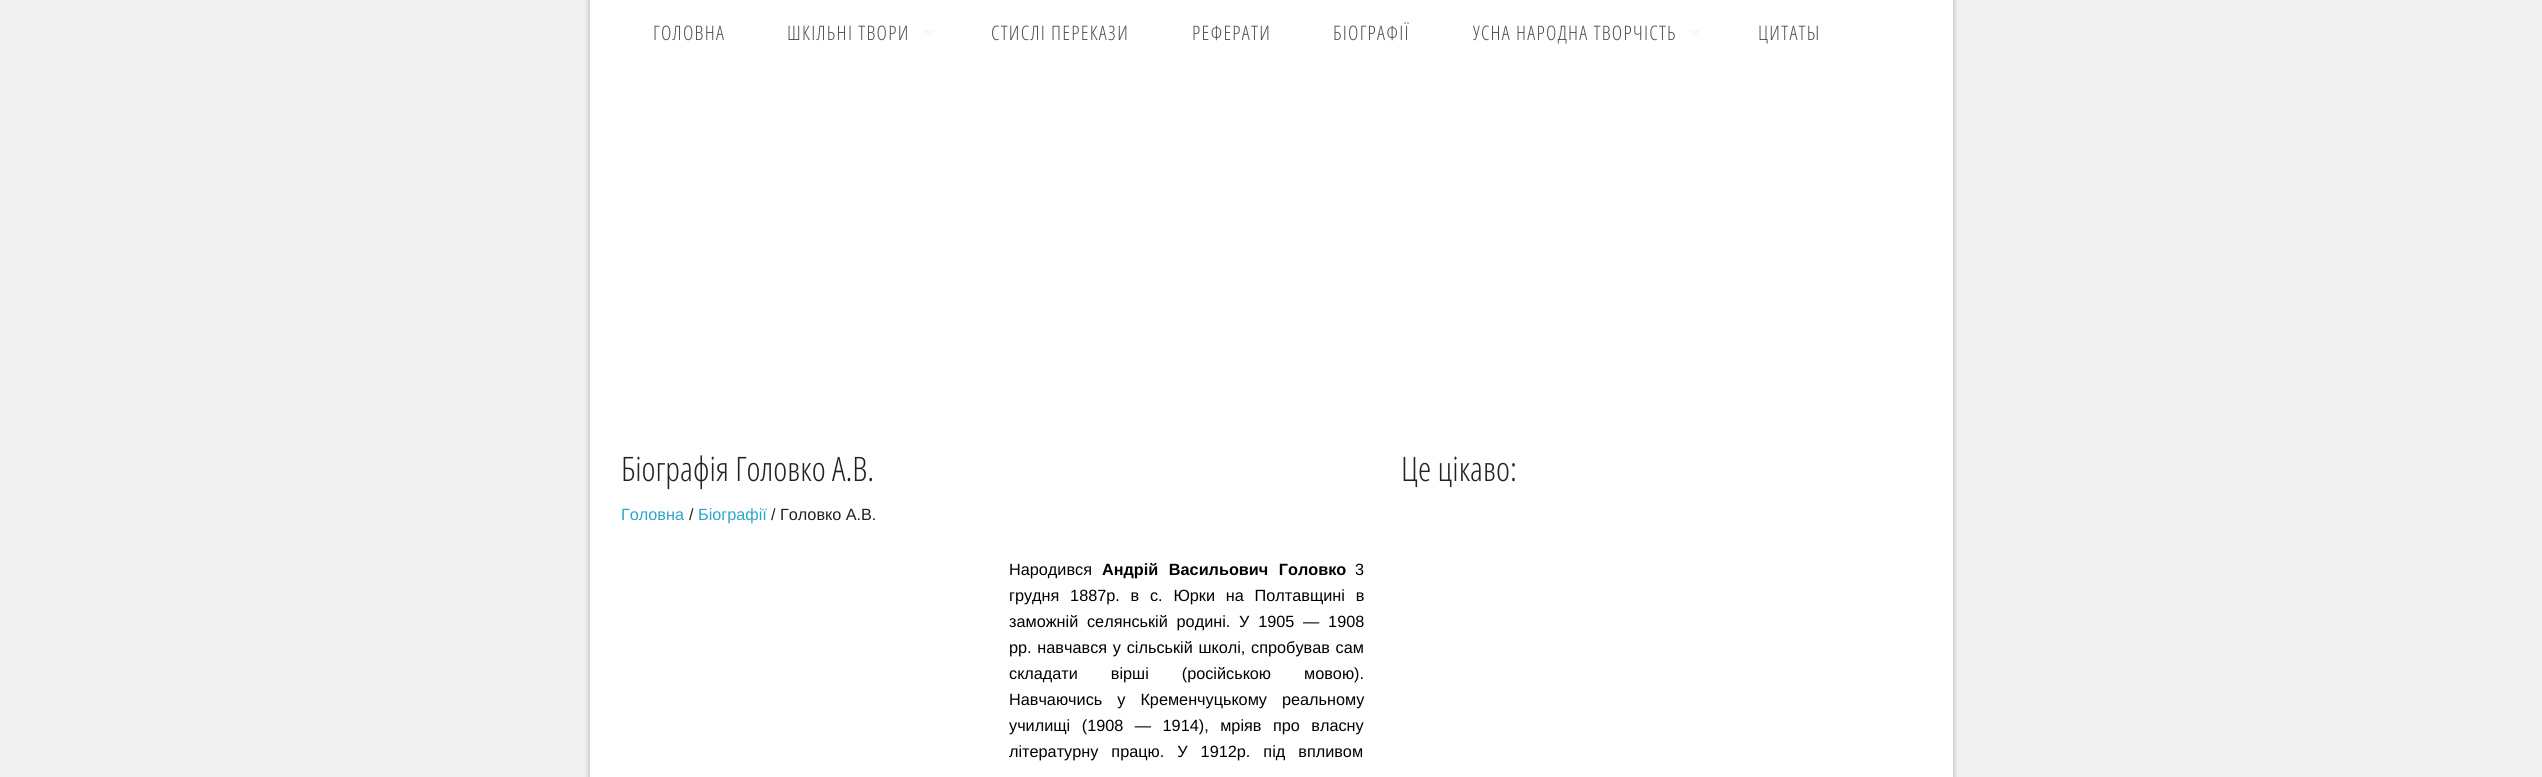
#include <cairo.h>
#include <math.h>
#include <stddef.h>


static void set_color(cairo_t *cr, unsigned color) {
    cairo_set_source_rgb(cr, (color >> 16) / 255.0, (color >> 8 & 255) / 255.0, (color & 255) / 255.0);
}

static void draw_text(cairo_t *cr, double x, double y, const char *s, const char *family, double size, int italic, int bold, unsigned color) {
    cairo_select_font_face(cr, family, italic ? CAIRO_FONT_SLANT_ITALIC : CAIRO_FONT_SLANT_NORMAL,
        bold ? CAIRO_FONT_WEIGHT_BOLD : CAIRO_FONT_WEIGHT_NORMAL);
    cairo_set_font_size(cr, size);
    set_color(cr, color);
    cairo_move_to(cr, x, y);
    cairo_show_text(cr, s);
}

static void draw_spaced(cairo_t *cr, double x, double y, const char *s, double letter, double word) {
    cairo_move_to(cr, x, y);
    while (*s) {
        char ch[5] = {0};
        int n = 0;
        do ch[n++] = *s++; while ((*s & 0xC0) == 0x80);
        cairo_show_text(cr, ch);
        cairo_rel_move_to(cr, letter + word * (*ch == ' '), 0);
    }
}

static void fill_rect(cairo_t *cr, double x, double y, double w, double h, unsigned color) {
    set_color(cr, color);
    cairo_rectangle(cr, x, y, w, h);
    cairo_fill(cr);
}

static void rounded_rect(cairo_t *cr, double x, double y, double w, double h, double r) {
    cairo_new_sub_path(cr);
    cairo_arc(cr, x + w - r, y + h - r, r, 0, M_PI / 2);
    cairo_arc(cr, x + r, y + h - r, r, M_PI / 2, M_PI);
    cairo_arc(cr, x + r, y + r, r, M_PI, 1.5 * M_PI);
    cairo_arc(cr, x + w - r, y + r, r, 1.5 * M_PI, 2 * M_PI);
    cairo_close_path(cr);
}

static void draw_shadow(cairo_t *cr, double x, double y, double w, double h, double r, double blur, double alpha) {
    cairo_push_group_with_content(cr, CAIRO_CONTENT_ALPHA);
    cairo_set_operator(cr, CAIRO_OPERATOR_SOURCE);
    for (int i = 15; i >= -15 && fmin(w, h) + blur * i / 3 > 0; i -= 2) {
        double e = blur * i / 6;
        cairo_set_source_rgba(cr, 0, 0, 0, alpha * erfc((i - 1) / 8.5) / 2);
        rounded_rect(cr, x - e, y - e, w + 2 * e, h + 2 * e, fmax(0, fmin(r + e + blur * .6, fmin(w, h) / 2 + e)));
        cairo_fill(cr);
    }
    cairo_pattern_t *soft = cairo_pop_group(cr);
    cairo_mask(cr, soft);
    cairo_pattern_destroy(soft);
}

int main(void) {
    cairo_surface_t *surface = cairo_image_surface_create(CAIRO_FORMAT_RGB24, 2542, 777);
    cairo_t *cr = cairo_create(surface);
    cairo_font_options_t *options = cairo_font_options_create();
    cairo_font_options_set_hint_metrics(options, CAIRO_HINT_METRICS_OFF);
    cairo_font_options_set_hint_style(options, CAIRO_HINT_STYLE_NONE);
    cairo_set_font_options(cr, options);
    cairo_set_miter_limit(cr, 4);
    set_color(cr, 0xF1F1F1);
    cairo_paint(cr);
    set_color(cr, 0x000000);
    draw_shadow(cr, 590, -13, 1363, 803, 4, 3, 0.3);
    fill_rect(cr, 590, 0, 1363, 777, 0xFFFFFF);
    cairo_select_font_face(cr, "Open Sans Condensed Light", CAIRO_FONT_SLANT_NORMAL, CAIRO_FONT_WEIGHT_NORMAL);
    cairo_set_font_size(cr, 20);
    set_color(cr, 0x4D4D4D);
    draw_spaced(cr, 653, 40, "ГОЛОВНА", 1.25, 0);
    draw_spaced(cr, 787, 40, "ШКІЛЬНІ ТВОРИ", 1.25, 0);
    set_color(cr, 0xF8F8F8);
    cairo_new_path(cr);
    cairo_move_to(cr, 922.5, 30);
    cairo_line_to(cr, 935, 30);
    cairo_line_to(cr, 929, 36);
    cairo_close_path(cr);
    cairo_fill(cr);
    set_color(cr, 0x4D4D4D);
    draw_spaced(cr, 991, 40, "СТИСЛІ ПЕРЕКАЗИ", 1.25, 0);
    draw_spaced(cr, 1192, 40, "РЕФЕРАТИ", 1.25, 0);
    draw_spaced(cr, 1333, 40, "БІОГРАФІЇ", 1.25, 0);
    draw_spaced(cr, 1473, 40, "УСНА НАРОДНА ТВОРЧІСТЬ", 1.25, 0);
    set_color(cr, 0xF8F8F8);
    cairo_new_path(cr);
    cairo_move_to(cr, 1689, 30);
    cairo_line_to(cr, 1701, 30);
    cairo_line_to(cr, 1695, 36);
    cairo_close_path(cr);
    cairo_fill(cr);
    set_color(cr, 0x4D4D4D);
    draw_spaced(cr, 1758, 40, "ЦИТАТЫ", 1.25, 0);
    draw_text(cr, 621, 481, "Біографія Головко А.В.", "Open Sans Condensed Light", 33.75, 0, 0, 0x222222);
    draw_text(cr, 621, 520, "Головна", "Liberation Sans", 16.25, 0, 0, 0x2BA6CB);
    draw_text(cr, 689, 520, "/", "Liberation Sans", 16.25, 0, 0, 0x222222);
    draw_text(cr, 698, 520, "Біографії", "Liberation Sans", 16.25, 0, 0, 0x2BA6CB);
    draw_text(cr, 771, 520, "/ Головко А.В.", "Liberation Sans", 16.25, 0, 0, 0x222222);
    draw_text(cr, 1009, 575, "Народився", "Liberation Sans", 16.25, 0, 0, 0x000000);
    cairo_select_font_face(cr, "Liberation Sans", CAIRO_FONT_SLANT_NORMAL, CAIRO_FONT_WEIGHT_BOLD);
    draw_spaced(cr, 1102, 575, "Андрій Васильович Головко", 0, 6);
    draw_text(cr, 1355, 575, "3", "Liberation Sans", 16.25, 0, 0, 0x000000);
    draw_spaced(cr, 1009, 601, "грудня 1887р. в с. Юрки на Полтавщині в", 0, 6.25);
    draw_spaced(cr, 1009, 627, "заможній селянській родині. У 1905 — 1908", 0, 4.25);
    draw_spaced(cr, 1009, 653, "рр. навчався у сільській школі, спробував сам", 0, 1.25);
    draw_spaced(cr, 1009, 679, "складати вірші (російською мовою).", 0, 28.5);
    draw_spaced(cr, 1009, 705, "Навчаючись у Кременчуцькому реальному", 0, 10.5);
    draw_spaced(cr, 1009, 731, "училищі (1908 — 1914), мріяв про власну", 0, 7);
    draw_spaced(cr, 1009, 757, "літературну працю. У 1912р. під впливом", 0, 8.5);
    draw_text(cr, 1401, 481, "Це цікаво:", "Open Sans Condensed Light", 33.75, 0, 0, 0x222222);
    cairo_surface_write_to_png(surface, "output.png");
    cairo_font_options_destroy(options);
    cairo_destroy(cr);
    cairo_surface_destroy(surface);
    return 0;
}
